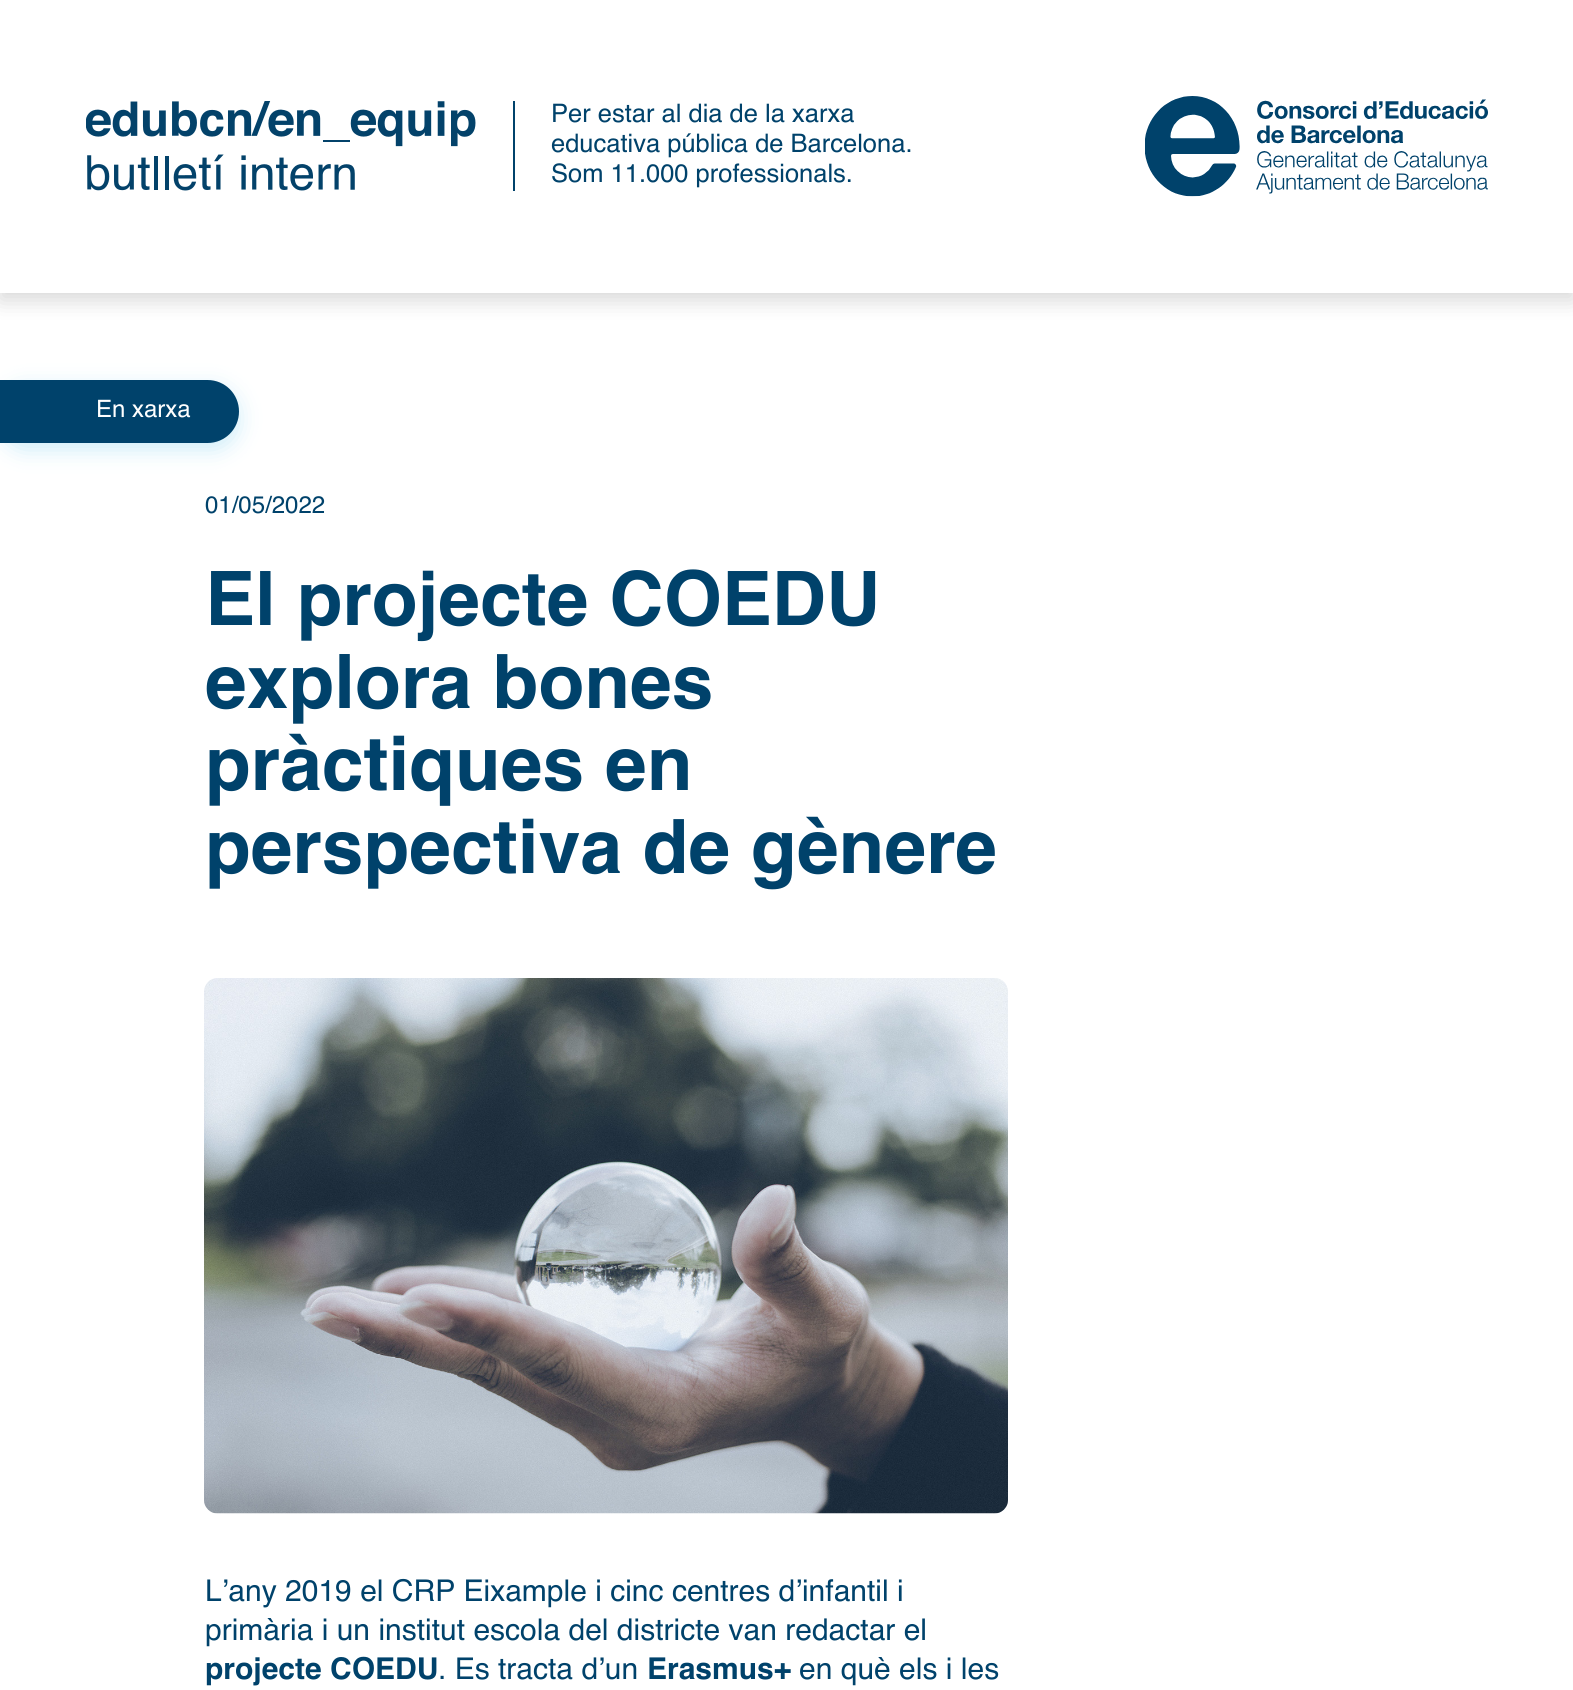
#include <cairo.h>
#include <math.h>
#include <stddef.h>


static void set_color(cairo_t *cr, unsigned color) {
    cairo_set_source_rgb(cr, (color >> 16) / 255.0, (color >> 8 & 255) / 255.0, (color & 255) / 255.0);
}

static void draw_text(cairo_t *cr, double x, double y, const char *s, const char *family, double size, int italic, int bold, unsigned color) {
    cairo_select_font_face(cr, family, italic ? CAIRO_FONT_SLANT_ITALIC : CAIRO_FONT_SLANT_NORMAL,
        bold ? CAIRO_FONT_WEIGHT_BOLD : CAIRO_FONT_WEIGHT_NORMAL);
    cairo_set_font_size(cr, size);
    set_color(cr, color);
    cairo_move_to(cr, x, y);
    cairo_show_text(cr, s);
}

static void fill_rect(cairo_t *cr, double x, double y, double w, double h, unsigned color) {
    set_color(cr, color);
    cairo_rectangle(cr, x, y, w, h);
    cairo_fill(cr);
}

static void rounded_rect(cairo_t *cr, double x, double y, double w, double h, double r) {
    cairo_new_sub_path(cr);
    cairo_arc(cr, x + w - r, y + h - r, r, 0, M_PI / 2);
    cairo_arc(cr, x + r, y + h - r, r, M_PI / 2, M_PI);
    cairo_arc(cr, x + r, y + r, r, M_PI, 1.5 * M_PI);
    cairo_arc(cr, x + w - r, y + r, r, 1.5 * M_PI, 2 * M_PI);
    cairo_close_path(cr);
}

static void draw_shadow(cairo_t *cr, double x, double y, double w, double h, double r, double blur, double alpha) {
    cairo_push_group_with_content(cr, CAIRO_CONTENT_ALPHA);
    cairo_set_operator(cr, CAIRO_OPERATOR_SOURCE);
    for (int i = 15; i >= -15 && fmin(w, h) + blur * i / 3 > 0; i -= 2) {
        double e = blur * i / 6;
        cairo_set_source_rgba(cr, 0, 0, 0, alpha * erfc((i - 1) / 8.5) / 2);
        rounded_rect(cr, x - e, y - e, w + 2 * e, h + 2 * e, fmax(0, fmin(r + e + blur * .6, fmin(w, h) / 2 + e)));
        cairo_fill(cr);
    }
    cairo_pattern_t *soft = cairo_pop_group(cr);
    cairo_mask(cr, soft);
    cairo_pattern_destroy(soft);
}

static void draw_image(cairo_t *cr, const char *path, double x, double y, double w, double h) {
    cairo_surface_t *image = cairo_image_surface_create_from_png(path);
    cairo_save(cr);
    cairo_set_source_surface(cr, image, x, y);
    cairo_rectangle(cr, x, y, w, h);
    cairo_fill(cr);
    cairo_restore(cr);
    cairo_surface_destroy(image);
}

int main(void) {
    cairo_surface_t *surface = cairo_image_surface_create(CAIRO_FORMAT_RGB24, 1573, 1690);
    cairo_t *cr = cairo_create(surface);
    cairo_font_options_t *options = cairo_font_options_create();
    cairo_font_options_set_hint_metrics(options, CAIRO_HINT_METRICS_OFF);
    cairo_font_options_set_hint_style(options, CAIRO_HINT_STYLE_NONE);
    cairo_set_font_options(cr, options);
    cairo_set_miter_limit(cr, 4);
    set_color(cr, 0xFFFFFF);
    cairo_paint(cr);
    set_color(cr, 0x000000);
    draw_shadow(cr, 0, 8, 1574, 292, 0, 11, 0.16);
    fill_rect(cr, 0, 0, 1573, 293, 0xFFFFFF);
    draw_image(cr, "assets/img1.png", 86, 101, 390, 90);
    fill_rect(cr, 513, 101, 2, 90, 0x00426B);
    draw_text(cr, 551, 122, "Per estar al dia de la xarxa", "Helvetica", 25.5, 0, 0, 0x00426B);
    draw_text(cr, 551, 152, "educativa pública de Barcelona.", "Helvetica", 25.5, 0, 0, 0x00426B);
    draw_text(cr, 551, 182, "Som 11.000 professionals.", "Helvetica", 25.5, 0, 0, 0x00426B);
    draw_image(cr, "assets/img2.png", 1145, 96, 343, 101);
    set_color(cr, 0x2FB4E5);
    draw_shadow(cr, 0, 387, 239, 63, 31.5, 11, 0.23);
    set_color(cr, 0x00426B);
    cairo_new_path(cr);
    cairo_move_to(cr, 0, 380);
    cairo_line_to(cr, 207.5, 380);
    cairo_curve_to(cr, 225, 380, 239, 394, 239, 411.5);
    cairo_curve_to(cr, 239, 429, 225, 443, 207.5, 443);
    cairo_line_to(cr, 0, 443);
    cairo_close_path(cr);
    cairo_fill(cr);
    draw_text(cr, 96, 417, "En xarxa", "Helvetica", 24, 0, 0, 0xFFFFFF);
    draw_text(cr, 205, 513, "01/05/2022", "Helvetica", 24, 0, 0, 0x00426B);
    draw_text(cr, 205, 625, "El projecte COEDU", "Helvetica", 75, 0, 1, 0x00426B);
    draw_text(cr, 205, 708, "explora bones", "Helvetica", 75, 0, 1, 0x00426B);
    draw_text(cr, 205, 790, "pràctiques en", "Helvetica", 75, 0, 1, 0x00426B);
    draw_text(cr, 205, 873, "perspectiva de gènere", "Helvetica", 75, 0, 1, 0x00426B);
    draw_image(cr, "assets/img3.png", 204, 978, 804, 536);
    draw_text(cr, 205, 1601, "L’any 2019 el CRP Eixample i cinc centres d’infantil i", "Helvetica", 30, 0, 0, 0x00426B);
    draw_text(cr, 205, 1640, "primària i un institut escola del districte van redactar el", "Helvetica", 30, 0, 0, 0x00426B);
    draw_text(cr, 205, 1679, "projecte COEDU", "Helvetica", 30, 0, 1, 0x00426B);
    draw_text(cr, 438, 1679, ". Es tracta d’un", "Helvetica", 30, 0, 0, 0x00426B);
    draw_text(cr, 647, 1679, "Erasmus+", "Helvetica", 30, 0, 1, 0x00426B);
    draw_text(cr, 799, 1679, "en què els i les", "Helvetica", 30, 0, 0, 0x00426B);
    cairo_surface_write_to_png(surface, "output.png");
    cairo_font_options_destroy(options);
    cairo_destroy(cr);
    cairo_surface_destroy(surface);
    return 0;
}
